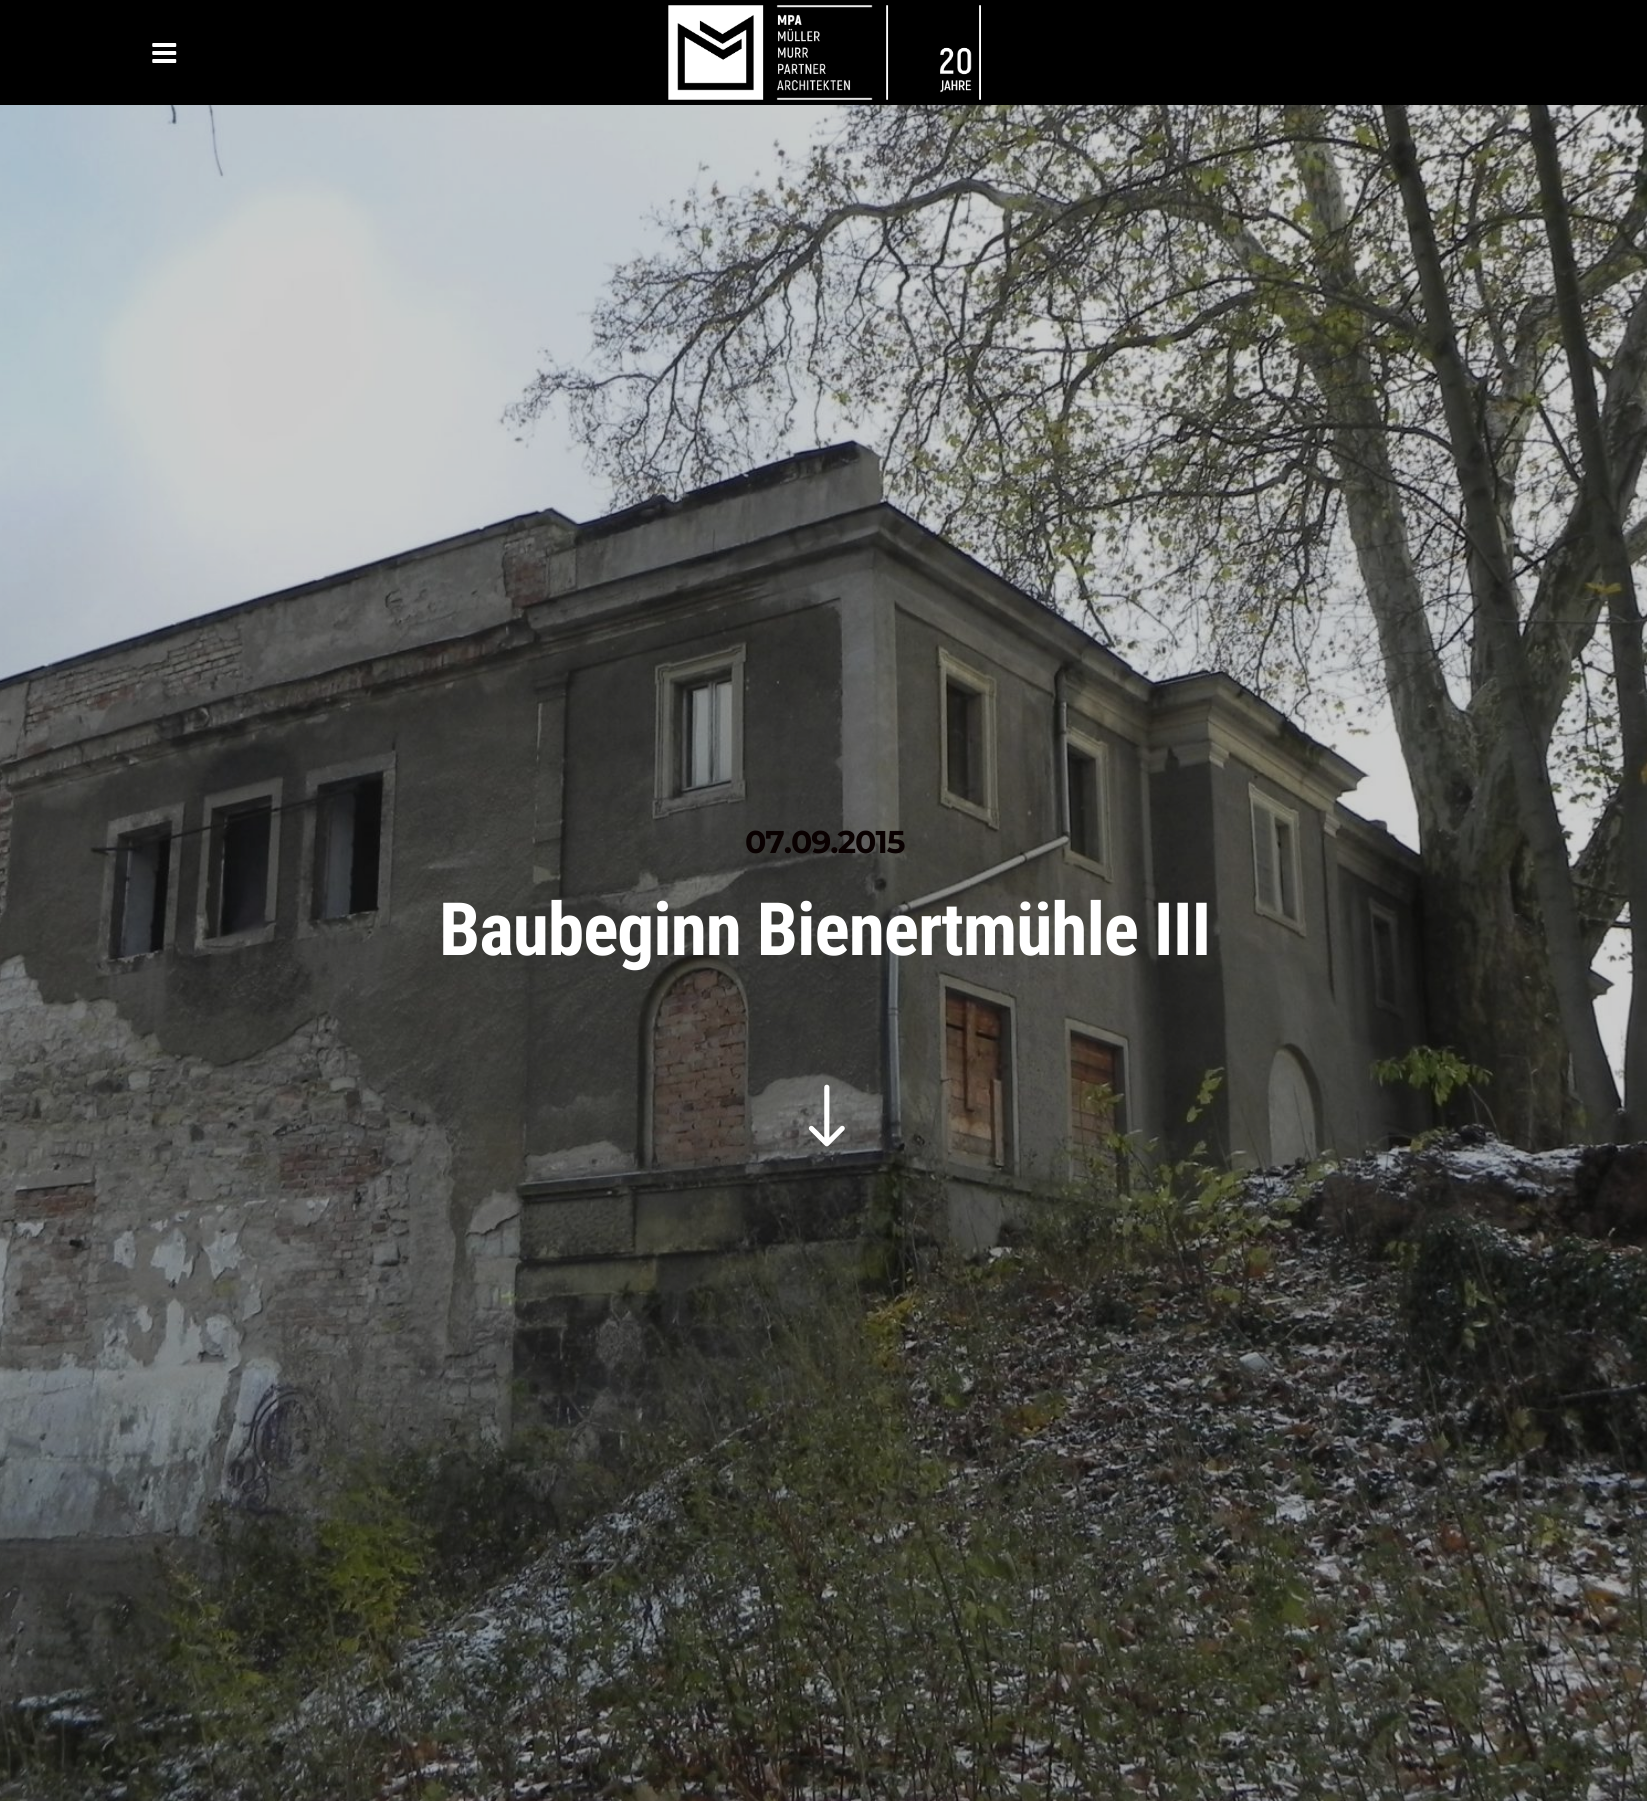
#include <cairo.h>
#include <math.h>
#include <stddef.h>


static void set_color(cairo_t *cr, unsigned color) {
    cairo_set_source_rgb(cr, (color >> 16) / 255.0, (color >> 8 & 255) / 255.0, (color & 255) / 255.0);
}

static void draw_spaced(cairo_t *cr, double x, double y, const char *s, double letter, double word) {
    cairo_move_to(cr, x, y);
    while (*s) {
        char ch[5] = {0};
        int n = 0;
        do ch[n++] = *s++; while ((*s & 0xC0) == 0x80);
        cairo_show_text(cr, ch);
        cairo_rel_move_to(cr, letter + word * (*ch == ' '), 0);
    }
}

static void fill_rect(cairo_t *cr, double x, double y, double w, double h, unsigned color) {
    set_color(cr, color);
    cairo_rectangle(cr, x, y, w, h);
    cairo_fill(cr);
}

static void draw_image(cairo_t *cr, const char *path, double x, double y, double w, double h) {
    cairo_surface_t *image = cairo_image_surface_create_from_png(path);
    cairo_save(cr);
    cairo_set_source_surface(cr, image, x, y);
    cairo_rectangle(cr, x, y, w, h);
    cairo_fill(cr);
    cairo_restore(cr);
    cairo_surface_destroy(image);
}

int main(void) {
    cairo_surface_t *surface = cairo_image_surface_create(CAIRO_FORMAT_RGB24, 1647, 1801);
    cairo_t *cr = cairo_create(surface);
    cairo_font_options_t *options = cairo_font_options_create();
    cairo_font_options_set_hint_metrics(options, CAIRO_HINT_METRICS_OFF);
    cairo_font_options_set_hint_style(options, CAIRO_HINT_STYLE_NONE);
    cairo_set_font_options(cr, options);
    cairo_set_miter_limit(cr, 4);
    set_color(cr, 0xFFFFFF);
    cairo_paint(cr);
    fill_rect(cr, 0, 0, 1647, 105, 0x000000);
    draw_image(cr, "assets/img1.png", 152, 43, 25, 20);
    draw_image(cr, "assets/img2.png", 668, 5, 313, 95);
    draw_image(cr, "assets/img3.png", 0, 105, 1647, 1696);
    cairo_select_font_face(cr, "Montserrat", CAIRO_FONT_SLANT_NORMAL, CAIRO_FONT_WEIGHT_BOLD);
    cairo_set_font_size(cr, 31.5);
    set_color(cr, 0x0A0101);
    draw_spaced(cr, 745, 853, "07.09.2015", -1.05, 0);
    cairo_select_font_face(cr, "Roboto Condensed", CAIRO_FONT_SLANT_NORMAL, CAIRO_FONT_WEIGHT_BOLD);
    cairo_set_font_size(cr, 73.5);
    set_color(cr, 0xFFFFFF);
    draw_spaced(cr, 439, 955, "Baubeginn Bienertmühle III", -1.05, 0);
    draw_image(cr, "assets/img4.png", 808, 1084, 37, 63);
    cairo_surface_write_to_png(surface, "output.png");
    cairo_font_options_destroy(options);
    cairo_destroy(cr);
    cairo_surface_destroy(surface);
    return 0;
}
